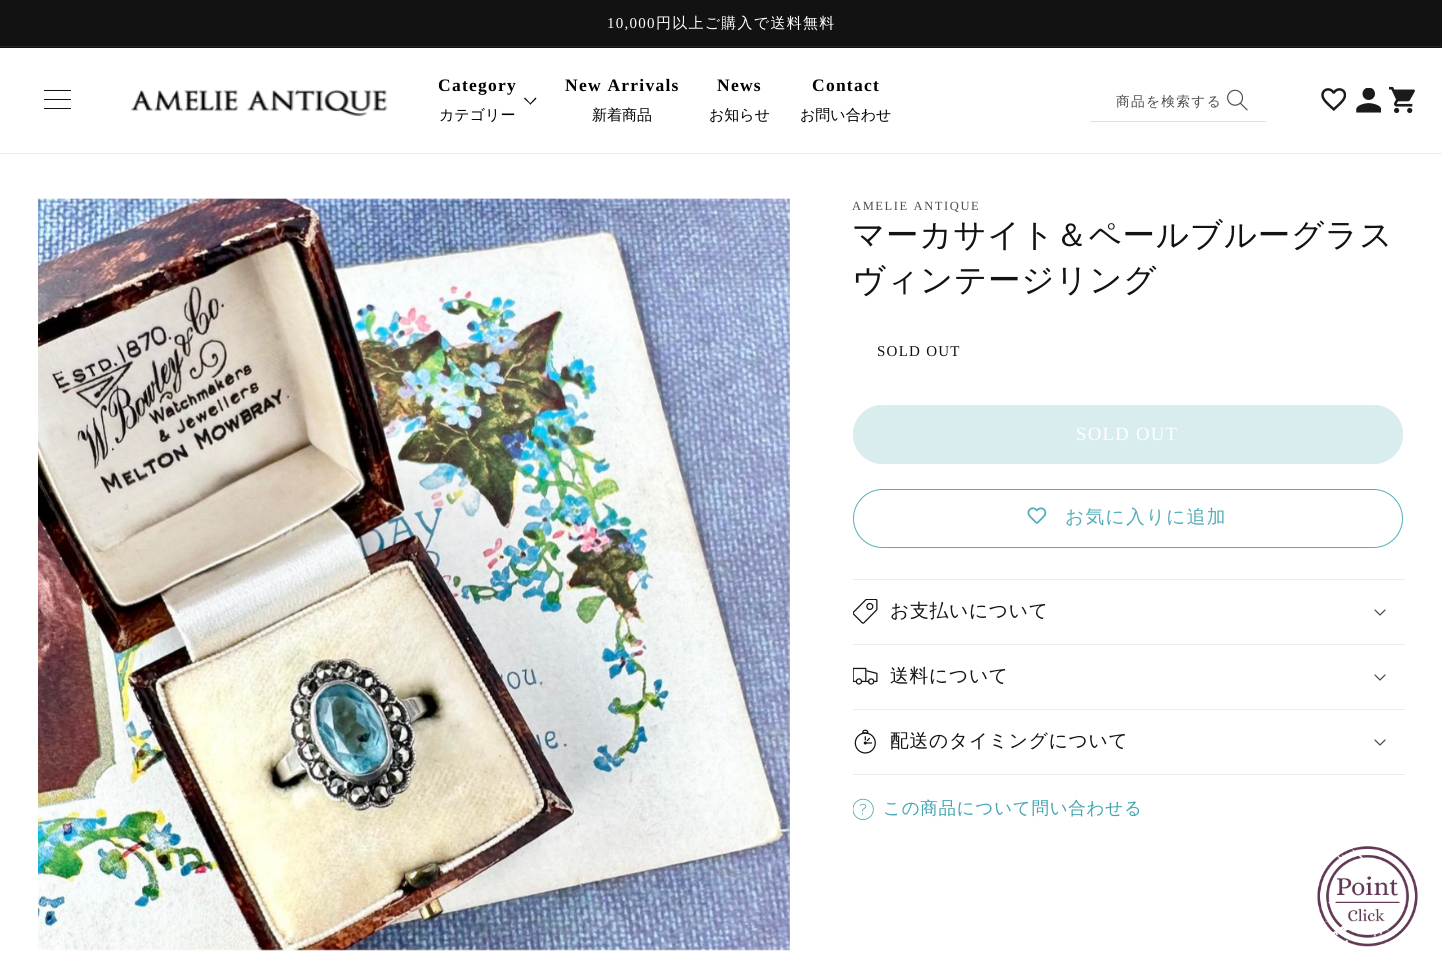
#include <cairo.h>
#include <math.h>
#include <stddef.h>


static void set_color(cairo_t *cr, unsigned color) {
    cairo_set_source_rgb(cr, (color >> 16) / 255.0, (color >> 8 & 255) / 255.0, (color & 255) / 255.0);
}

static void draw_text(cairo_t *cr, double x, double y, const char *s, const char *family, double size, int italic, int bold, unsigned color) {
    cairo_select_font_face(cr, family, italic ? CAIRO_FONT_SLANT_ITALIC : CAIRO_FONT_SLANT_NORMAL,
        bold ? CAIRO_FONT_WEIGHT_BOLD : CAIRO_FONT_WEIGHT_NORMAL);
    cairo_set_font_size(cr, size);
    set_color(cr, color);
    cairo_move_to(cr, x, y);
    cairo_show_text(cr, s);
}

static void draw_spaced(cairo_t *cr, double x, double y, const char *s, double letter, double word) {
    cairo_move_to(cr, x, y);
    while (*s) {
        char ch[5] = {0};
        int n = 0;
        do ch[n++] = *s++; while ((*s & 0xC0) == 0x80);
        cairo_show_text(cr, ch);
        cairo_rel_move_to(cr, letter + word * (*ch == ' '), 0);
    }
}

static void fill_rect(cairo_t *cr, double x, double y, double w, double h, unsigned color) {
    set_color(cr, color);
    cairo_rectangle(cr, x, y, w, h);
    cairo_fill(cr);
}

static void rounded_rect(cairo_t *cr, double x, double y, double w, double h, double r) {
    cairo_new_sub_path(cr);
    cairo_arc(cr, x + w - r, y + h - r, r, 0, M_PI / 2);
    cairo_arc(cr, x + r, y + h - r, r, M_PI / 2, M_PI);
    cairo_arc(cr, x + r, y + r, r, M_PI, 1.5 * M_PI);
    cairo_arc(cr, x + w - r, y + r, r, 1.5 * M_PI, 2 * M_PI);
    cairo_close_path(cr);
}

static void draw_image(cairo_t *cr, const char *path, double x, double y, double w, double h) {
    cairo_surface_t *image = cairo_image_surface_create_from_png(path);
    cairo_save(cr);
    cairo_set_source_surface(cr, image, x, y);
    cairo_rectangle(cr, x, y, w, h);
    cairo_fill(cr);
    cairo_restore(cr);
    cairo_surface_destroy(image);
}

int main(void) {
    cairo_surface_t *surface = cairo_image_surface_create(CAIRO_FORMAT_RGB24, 1442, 971);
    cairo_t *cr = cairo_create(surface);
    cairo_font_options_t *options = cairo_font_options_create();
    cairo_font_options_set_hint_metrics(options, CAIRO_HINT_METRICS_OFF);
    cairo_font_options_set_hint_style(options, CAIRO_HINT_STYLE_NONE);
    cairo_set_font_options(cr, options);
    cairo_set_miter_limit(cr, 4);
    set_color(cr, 0xFFFFFF);
    cairo_paint(cr);
    fill_rect(cr, 0, 0, 1442, 48, 0x121212);
    fill_rect(cr, 0, 46, 1442, 1, 0x252525);
    cairo_select_font_face(cr, "Liberation Serif", CAIRO_FONT_SLANT_NORMAL, CAIRO_FONT_WEIGHT_NORMAL);
    cairo_set_font_size(cr, 15);
    set_color(cr, 0xFFFFFF);
    draw_spaced(cr, 607, 28, "10,000", 1.25, 0);
    cairo_select_font_face(cr, "WenQuanYi Zen Hei Medium", CAIRO_FONT_SLANT_NORMAL, CAIRO_FONT_WEIGHT_NORMAL);
    draw_spaced(cr, 656, 28, "円以上ご購入で送料無料", 1.25, 0);
    fill_rect(cr, 0, 153, 1442, 1, 0xECECEC);
    fill_rect(cr, 44, 90, 27, 1, 0x121212);
    fill_rect(cr, 44, 99, 27, 1, 0x121212);
    fill_rect(cr, 44, 108, 27, 1, 0x121212);
    draw_image(cr, "assets/img1.png", 130, 90, 258, 27);
    cairo_select_font_face(cr, "Liberation Serif", CAIRO_FONT_SLANT_NORMAL, CAIRO_FONT_WEIGHT_BOLD);
    cairo_set_font_size(cr, 17.5);
    set_color(cr, 0x000000);
    draw_spaced(cr, 438, 91, "Category", 1.25, 0);
    cairo_new_path(cr);
    cairo_move_to(cr, 536.5, 98.5);
    cairo_line_to(cr, 530.5, 104.5);
    cairo_line_to(cr, 529.5, 104);
    cairo_line_to(cr, 535.5, 97.5);
    cairo_close_path(cr);
    cairo_fill(cr);
    cairo_new_path(cr);
    cairo_move_to(cr, 531, 104);
    cairo_line_to(cr, 530.5, 104.5);
    cairo_line_to(cr, 524, 98.5);
    cairo_line_to(cr, 525, 97.5);
    cairo_close_path(cr);
    cairo_fill(cr);
    draw_text(cr, 439, 120, "カテゴリー", "WenQuanYi Zen Hei Medium", 15, 0, 0, 0x000000);
    cairo_select_font_face(cr, "Liberation Serif", CAIRO_FONT_SLANT_NORMAL, CAIRO_FONT_WEIGHT_BOLD);
    cairo_set_font_size(cr, 17.5);
    draw_spaced(cr, 565, 91, "New Arrivals", 1.25, 0);
    draw_text(cr, 592, 120, "新着商品", "WenQuanYi Zen Hei Medium", 15, 0, 0, 0x000000);
    cairo_select_font_face(cr, "Liberation Serif", CAIRO_FONT_SLANT_NORMAL, CAIRO_FONT_WEIGHT_BOLD);
    cairo_set_font_size(cr, 17.5);
    draw_spaced(cr, 717, 91, "News", 1.25, 0);
    draw_text(cr, 709, 120, "お知らせ", "WenQuanYi Zen Hei Medium", 15, 0, 0, 0x000000);
    cairo_select_font_face(cr, "Liberation Serif", CAIRO_FONT_SLANT_NORMAL, CAIRO_FONT_WEIGHT_BOLD);
    cairo_set_font_size(cr, 17.5);
    draw_spaced(cr, 812, 91, "Contact", 1.25, 0);
    draw_text(cr, 800, 120, "お問い合わせ", "WenQuanYi Zen Hei Medium", 15, 0, 0, 0x000000);
    cairo_set_font_size(cr, 13.75);
    set_color(cr, 0x4D4D4D);
    draw_spaced(cr, 1116, 106, "商品を検索する", 1.25, 0);
    draw_image(cr, "assets/img2.png", 1227, 89, 21, 22);
    fill_rect(cr, 1090, 121, 176, 1, 0xDFDFDF);
    draw_image(cr, "assets/img3.png", 1321, 88, 25, 23);
    draw_image(cr, "assets/img4.png", 1356, 88, 25, 25);
    draw_image(cr, "assets/img5.png", 1389, 86, 26, 28);
    draw_image(cr, "assets/img6.png", 38, 198, 752, 753);
    cairo_select_font_face(cr, "Liberation Serif", CAIRO_FONT_SLANT_NORMAL, CAIRO_FONT_WEIGHT_NORMAL);
    cairo_set_font_size(cr, 12.5);
    set_color(cr, 0x4D4D4D);
    draw_spaced(cr, 852, 210, "AMELIE ANTIQUE", 1.6, 0);
    cairo_select_font_face(cr, "WenQuanYi Zen Hei Medium", CAIRO_FONT_SLANT_NORMAL, CAIRO_FONT_WEIGHT_NORMAL);
    cairo_set_font_size(cr, 32.5);
    set_color(cr, 0x121212);
    draw_spaced(cr, 852, 246, "マーカサイト＆ペールブルーグラス", 0.75, 0);
    draw_spaced(cr, 852, 291, "ヴィンテージリング", 0.75, 0);
    cairo_select_font_face(cr, "Liberation Serif", CAIRO_FONT_SLANT_NORMAL, CAIRO_FONT_WEIGHT_NORMAL);
    cairo_set_font_size(cr, 15);
    draw_spaced(cr, 877, 356, "SOLD OUT", 1.25, 0);
    set_color(cr, 0xD9EDEF);
    rounded_rect(cr, 853, 405, 550, 59, 29.5);
    cairo_fill(cr);
    rounded_rect(cr, 853.5, 405.5, 549, 58, 29);
    cairo_set_line_width(cr, 1);
    cairo_stroke(cr);
    cairo_set_font_size(cr, 18.75);
    set_color(cr, 0xFFFFFF);
    draw_spaced(cr, 1076, 440, "SOLD OUT", 1.25, 0);
    draw_image(cr, "assets/img7.png", 1027, 507, 20, 17);
    rounded_rect(cr, 853.5, 489.5, 549, 58, 29);
    set_color(cr, 0x54AEB8);
    cairo_stroke(cr);
    cairo_select_font_face(cr, "WenQuanYi Zen Hei Medium", CAIRO_FONT_SLANT_NORMAL, CAIRO_FONT_WEIGHT_NORMAL);
    draw_spaced(cr, 1065, 523, "お気に入りに追加", 1.25, 0);
    fill_rect(cr, 853, 579, 552, 1, 0xECECEC);
    fill_rect(cr, 853, 644, 552, 1, 0xECECEC);
    draw_image(cr, "assets/img8.png", 853, 599, 25, 25);
    set_color(cr, 0x121212);
    draw_spaced(cr, 890, 617, "お支払いについて", 0.75, 0);
    draw_image(cr, "assets/img9.png", 1374, 609, 12, 7);
    fill_rect(cr, 853, 709, 552, 1, 0xECECEC);
    draw_image(cr, "assets/img10.png", 853, 667, 25, 18);
    set_color(cr, 0x121212);
    draw_spaced(cr, 890, 682, "送料について", 0.75, 0);
    draw_image(cr, "assets/img9.png", 1374, 674, 12, 7);
    fill_rect(cr, 853, 774, 552, 1, 0xECECEC);
    draw_image(cr, "assets/img11.png", 854, 729, 22, 25);
    set_color(cr, 0x121212);
    draw_spaced(cr, 890, 747, "配送のタイミングについて", 0.75, 0);
    draw_image(cr, "assets/img9.png", 1374, 739, 12, 7);
    draw_image(cr, "assets/img12.png", 853, 798, 21, 22);
    cairo_set_font_size(cr, 17.5);
    set_color(cr, 0x41A5B0);
    draw_spaced(cr, 883, 814, "この商品について問い合わせる", 0.75, 0);
    draw_image(cr, "assets/img13.png", 1317, 846, 101, 101);
    cairo_surface_write_to_png(surface, "output.png");
    cairo_font_options_destroy(options);
    cairo_destroy(cr);
    cairo_surface_destroy(surface);
    return 0;
}
